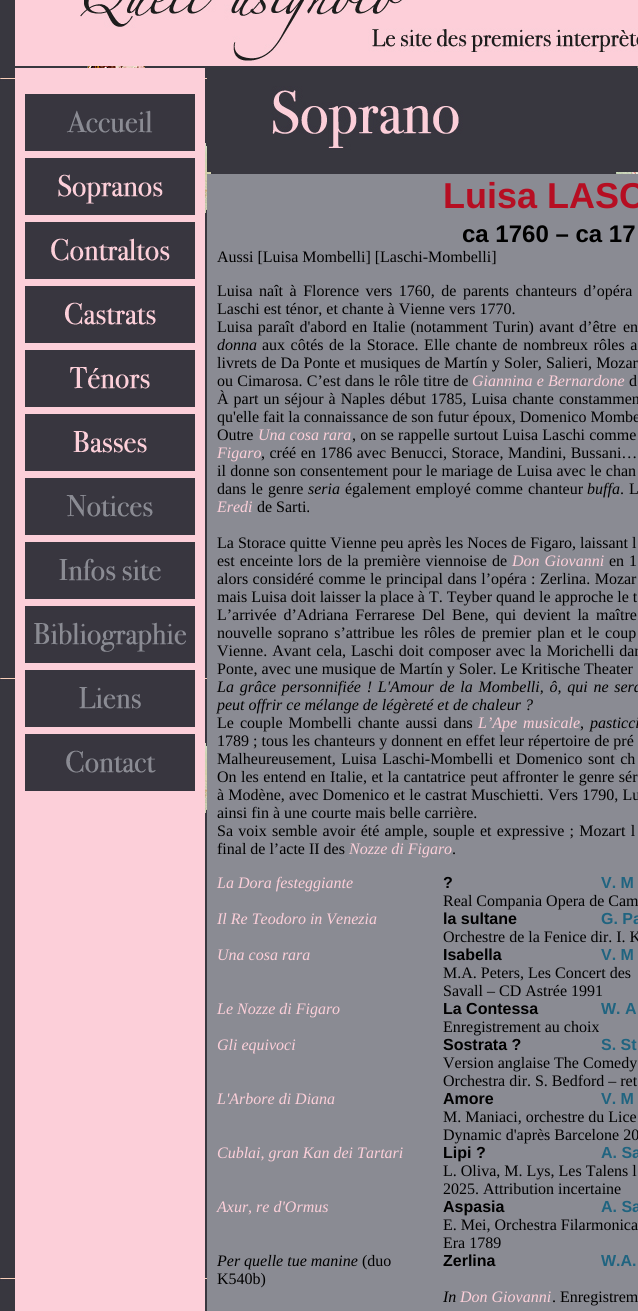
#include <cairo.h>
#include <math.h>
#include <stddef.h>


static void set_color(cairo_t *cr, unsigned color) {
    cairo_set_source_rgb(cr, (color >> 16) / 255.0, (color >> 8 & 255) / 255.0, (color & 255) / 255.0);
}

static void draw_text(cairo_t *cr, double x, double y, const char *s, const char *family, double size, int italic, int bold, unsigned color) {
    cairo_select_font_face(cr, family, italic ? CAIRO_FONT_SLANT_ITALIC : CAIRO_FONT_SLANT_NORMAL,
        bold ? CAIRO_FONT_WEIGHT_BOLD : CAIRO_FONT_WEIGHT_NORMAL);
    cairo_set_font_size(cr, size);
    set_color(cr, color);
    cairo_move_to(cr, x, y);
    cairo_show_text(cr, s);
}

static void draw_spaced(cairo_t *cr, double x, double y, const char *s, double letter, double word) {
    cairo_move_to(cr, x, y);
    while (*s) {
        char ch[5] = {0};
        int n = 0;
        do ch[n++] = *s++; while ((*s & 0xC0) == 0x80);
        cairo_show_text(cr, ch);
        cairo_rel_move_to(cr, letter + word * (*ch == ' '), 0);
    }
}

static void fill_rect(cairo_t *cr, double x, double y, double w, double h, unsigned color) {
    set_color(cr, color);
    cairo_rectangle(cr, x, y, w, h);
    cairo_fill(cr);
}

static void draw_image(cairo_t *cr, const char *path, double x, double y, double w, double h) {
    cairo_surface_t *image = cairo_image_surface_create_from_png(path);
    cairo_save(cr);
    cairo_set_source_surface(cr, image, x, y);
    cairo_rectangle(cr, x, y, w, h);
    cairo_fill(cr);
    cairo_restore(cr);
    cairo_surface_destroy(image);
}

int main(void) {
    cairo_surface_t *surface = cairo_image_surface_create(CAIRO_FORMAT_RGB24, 638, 1311);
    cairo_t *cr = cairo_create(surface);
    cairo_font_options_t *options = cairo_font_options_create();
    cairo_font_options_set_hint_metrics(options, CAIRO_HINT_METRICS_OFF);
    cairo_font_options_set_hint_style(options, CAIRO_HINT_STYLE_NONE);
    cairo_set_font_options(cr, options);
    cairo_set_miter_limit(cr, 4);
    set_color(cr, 0xFFFFFF);
    cairo_paint(cr);
    draw_image(cr, "assets/img1.png", 0, 0, 638, 1311);
    draw_image(cr, "assets/img2.png", 15, 0, 623, 66);
    draw_image(cr, "assets/img3.png", 79, 0, 559, 61);
    fill_rect(cr, 15, 68, 190, 1243, 0xFCCFD9);
    draw_image(cr, "assets/img4.png", 25, 94, 170, 57);
    draw_image(cr, "assets/img5.png", 25, 158, 170, 57);
    draw_image(cr, "assets/img6.png", 25, 222, 170, 57);
    draw_image(cr, "assets/img7.png", 25, 286, 170, 57);
    draw_image(cr, "assets/img8.png", 25, 350, 170, 57);
    draw_image(cr, "assets/img9.png", 25, 414, 170, 57);
    draw_image(cr, "assets/img10.png", 25, 478, 170, 57);
    draw_image(cr, "assets/img11.png", 25, 542, 170, 57);
    draw_image(cr, "assets/img12.png", 25, 606, 170, 57);
    draw_image(cr, "assets/img13.png", 25, 670, 170, 57);
    draw_image(cr, "assets/img14.png", 25, 734, 170, 57);
    draw_image(cr, "assets/img15.png", 207, 68, 431, 104);
    fill_rect(cr, 207, 174, 431, 1137, 0x8A8B93);
    draw_text(cr, 443, 208, "Luisa LASC", "Liberation Sans", 36, 0, 1, 0xB60E22);
    draw_text(cr, 462, 242, "ca 1760 – ca 17", "Liberation Sans", 24, 0, 1, 0x000000);
    draw_text(cr, 217, 262, "Aussi [Luisa Mombelli] [Laschi-Mombelli]", "Liberation Serif", 16, 0, 0, 0x000000);
    draw_spaced(cr, 217, 296, "Luisa naît à Florence vers 1760, de parents chanteurs d’opéra", 0, 2.5);
    draw_text(cr, 217, 314, "Laschi est ténor, et chante à Vienne vers 1770.", "Liberation Serif", 16, 0, 0, 0x000000);
    draw_spaced(cr, 217, 332, "Luisa paraît d'abord en Italie (notamment Turin) avant d’être", 0, 1.25);
    draw_spaced(cr, 623, 332, "en", 0, 1.25);
    draw_text(cr, 217, 350, "donna", "Liberation Serif", 16, 1, 0, 0x000000);
    cairo_select_font_face(cr, "Liberation Serif", CAIRO_FONT_SLANT_NORMAL, CAIRO_FONT_WEIGHT_NORMAL);
    draw_spaced(cr, 262, 350, "aux côtés de la Storace. Elle chante de nombreux rôles a", 0, 1.5);
    draw_spaced(cr, 217, 368, "livrets de Da Ponte et musiques de Martín y Soler, Salieri, Mozar", 0, 0.25);
    draw_spaced(cr, 217, 386, "ou Cimarosa. C’est dans le rôle titre de", 0, 0.25);
    cairo_select_font_face(cr, "Liberation Serif", CAIRO_FONT_SLANT_ITALIC, CAIRO_FONT_WEIGHT_NORMAL);
    set_color(cr, 0xFCCFD9);
    draw_spaced(cr, 472, 386, "Giannina e Bernardone", 0, 0.25);
    cairo_select_font_face(cr, "Liberation Serif", CAIRO_FONT_SLANT_NORMAL, CAIRO_FONT_WEIGHT_NORMAL);
    set_color(cr, 0x000000);
    draw_spaced(cr, 629, 386, "d", 0, 0.25);
    draw_spaced(cr, 217, 404, "À part un séjour à Naples début 1785, Luisa chante constammen", 0, 1);
    draw_text(cr, 217, 422, "qu'elle fait la connaissance de son futur époux, Domenico Mombe", "Liberation Serif", 16, 0, 0, 0x000000);
    draw_text(cr, 217, 440, "Outre", "Liberation Serif", 16, 0, 0, 0x000000);
    draw_text(cr, 258, 440, "Una cosa rara", "Liberation Serif", 16, 1, 0, 0xFCCFD9);
    cairo_select_font_face(cr, "Liberation Serif", CAIRO_FONT_SLANT_NORMAL, CAIRO_FONT_WEIGHT_NORMAL);
    set_color(cr, 0x000000);
    draw_spaced(cr, 352, 440, ", on se rappelle surtout Luisa Laschi comme", 0, 0.25);
    draw_text(cr, 217, 458, "Figaro", "Liberation Serif", 16, 1, 0, 0xFCCFD9);
    cairo_select_font_face(cr, "Liberation Serif", CAIRO_FONT_SLANT_NORMAL, CAIRO_FONT_WEIGHT_NORMAL);
    set_color(cr, 0x000000);
    draw_spaced(cr, 261, 458, ", créé en 1786 avec Benucci, Storace, Mandini, Bussani…", 0, 0.5);
    draw_spaced(cr, 217, 476, "il donne son consentement pour le mariage de Luisa avec le chan", 0, 0.25);
    draw_spaced(cr, 217, 494, "dans le genre", 0, 1);
    draw_text(cr, 308, 494, "seria", "Liberation Serif", 16, 1, 0, 0x000000);
    cairo_select_font_face(cr, "Liberation Serif", CAIRO_FONT_SLANT_NORMAL, CAIRO_FONT_WEIGHT_NORMAL);
    draw_spaced(cr, 345, 494, "également employé comme chanteur", 0, 1);
    draw_text(cr, 587, 494, "buffa", "Liberation Serif", 16, 1, 0, 0x000000);
    cairo_select_font_face(cr, "Liberation Serif", CAIRO_FONT_SLANT_NORMAL, CAIRO_FONT_WEIGHT_NORMAL);
    draw_spaced(cr, 620, 494, ". L", 0, 1);
    draw_text(cr, 217, 512, "Eredi", "Liberation Serif", 16, 1, 0, 0xFCCFD9);
    draw_text(cr, 257, 512, "de Sarti.", "Liberation Serif", 16, 0, 0, 0x000000);
    draw_text(cr, 217, 548, "La Storace quitte Vienne peu après les Noces de Figaro, laissant l", "Liberation Serif", 16, 0, 0, 0x000000);
    draw_spaced(cr, 217, 566, "est enceinte lors de la première viennoise de", 0, 1);
    cairo_select_font_face(cr, "Liberation Serif", CAIRO_FONT_SLANT_ITALIC, CAIRO_FONT_WEIGHT_NORMAL);
    set_color(cr, 0xFCCFD9);
    draw_spaced(cr, 512, 566, "Don Giovanni", 0, 1);
    cairo_select_font_face(cr, "Liberation Serif", CAIRO_FONT_SLANT_NORMAL, CAIRO_FONT_WEIGHT_NORMAL);
    set_color(cr, 0x000000);
    draw_spaced(cr, 609, 566, "en 1", 0, 1);
    draw_spaced(cr, 217, 584, "alors considéré comme le principal dans l’opéra : Zerlina. Mozar", 0, 0.5);
    draw_text(cr, 217, 602, "mais Luisa doit laisser la place à T. Teyber quand le approche le t", "Liberation Serif", 16, 0, 0, 0x000000);
    draw_spaced(cr, 217, 620, "L’arrivée d’Adriana Ferrarese Del Bene, qui devient la maître", 0, 3);
    draw_spaced(cr, 217, 638, "nouvelle soprano s’attribue les rôles de premier plan et le coup", 0, 1.75);
    draw_spaced(cr, 217, 656, "Vienne. Avant cela, Laschi doit composer avec la Morichelli dan", 0, 1);
    draw_text(cr, 217, 674, "Ponte, avec une musique de Martín y Soler. Le Kritische Theater", "Liberation Serif", 16, 0, 0, 0x000000);
    cairo_select_font_face(cr, "Liberation Serif", CAIRO_FONT_SLANT_ITALIC, CAIRO_FONT_WEIGHT_NORMAL);
    draw_spaced(cr, 217, 692, "La grâce personnifiée ! L'Amour de la Mombelli, ô, qui ne sera", 0, 1.75);
    draw_text(cr, 217, 710, "peut offrir ce mélange de légèreté et de chaleur ?", "Liberation Serif", 16, 1, 0, 0x000000);
    cairo_select_font_face(cr, "Liberation Serif", CAIRO_FONT_SLANT_NORMAL, CAIRO_FONT_WEIGHT_NORMAL);
    draw_spaced(cr, 217, 728, "Le couple Mombelli chante aussi dans", 0, 2);
    cairo_select_font_face(cr, "Liberation Serif", CAIRO_FONT_SLANT_ITALIC, CAIRO_FONT_WEIGHT_NORMAL);
    set_color(cr, 0xFCCFD9);
    draw_spaced(cr, 478, 728, "L’Ape musicale", 0, 2);
    draw_text(cr, 580, 728, ",", "Liberation Serif", 16, 0, 0, 0x000000);
    draw_text(cr, 590, 728, "pasticci", "Liberation Serif", 16, 1, 0, 0x000000);
    draw_text(cr, 217, 746, "1789 ; tous les chanteurs y donnent en effet leur répertoire de pré", "Liberation Serif", 16, 0, 0, 0x000000);
    draw_spaced(cr, 217, 764, "Malheureusement, Luisa Laschi-Mombelli et Domenico sont ch", 0, 1.5);
    draw_spaced(cr, 217, 782, "On les entend en Italie, et la cantatrice peut affronter le genre sér", 0, 0.5);
    draw_spaced(cr, 217, 800, "à Modène, avec Domenico et le castrat Muschietti. Vers 1790, Lu", 0, 0.25);
    draw_text(cr, 217, 818, "ainsi fin à une courte mais belle carrière.", "Liberation Serif", 16, 0, 0, 0x000000);
    draw_spaced(cr, 217, 836, "Sa voix semble avoir été ample, souple et expressive ; Mozart l", 0, 1.25);
    draw_text(cr, 217, 854, "final de l’acte II des", "Liberation Serif", 16, 0, 0, 0x000000);
    draw_text(cr, 349, 854, "Nozze di Figaro", "Liberation Serif", 16, 1, 0, 0xFCCFD9);
    draw_text(cr, 452, 854, ".", "Liberation Serif", 16, 0, 0, 0x000000);
    draw_text(cr, 217, 888, "La Dora festeggiante", "Liberation Serif", 16, 1, 0, 0xFCCFD9);
    draw_text(cr, 443, 888, "?", "Liberation Sans", 16, 0, 1, 0x000000);
    draw_text(cr, 601, 888, "V. M", "Liberation Sans", 16, 0, 1, 0x206480);
    draw_text(cr, 443, 906, "Real Compania Opera de Cam", "Liberation Serif", 16, 0, 0, 0x000000);
    draw_text(cr, 217, 924, "Il Re Teodoro in Venezia", "Liberation Serif", 16, 1, 0, 0xFCCFD9);
    draw_text(cr, 443, 924, "la sultane", "Liberation Sans", 16, 0, 1, 0x000000);
    draw_text(cr, 601, 924, "G. Pa", "Liberation Sans", 16, 0, 1, 0x206480);
    draw_text(cr, 443, 942, "Orchestre de la Fenice dir. I. K", "Liberation Serif", 16, 0, 0, 0x000000);
    draw_text(cr, 217, 960, "Una cosa rara", "Liberation Serif", 16, 1, 0, 0xFCCFD9);
    draw_text(cr, 443, 960, "Isabella", "Liberation Sans", 16, 0, 1, 0x000000);
    draw_text(cr, 601, 960, "V. M", "Liberation Sans", 16, 0, 1, 0x206480);
    draw_text(cr, 443, 978, "M.A. Peters, Les Concert des", "Liberation Serif", 16, 0, 0, 0x000000);
    draw_text(cr, 443, 996, "Savall – CD Astrée 1991", "Liberation Serif", 16, 0, 0, 0x000000);
    draw_text(cr, 217, 1014, "Le Nozze di Figaro", "Liberation Serif", 16, 1, 0, 0xFCCFD9);
    draw_text(cr, 443, 1014, "La Contessa", "Liberation Sans", 16, 0, 1, 0x000000);
    draw_text(cr, 601, 1014, "W. A", "Liberation Sans", 16, 0, 1, 0x206480);
    draw_text(cr, 443, 1032, "Enregistrement au choix", "Liberation Serif", 16, 0, 0, 0x000000);
    draw_text(cr, 217, 1050, "Gli equivoci", "Liberation Serif", 16, 1, 0, 0xFCCFD9);
    draw_text(cr, 443, 1050, "Sostrata ?", "Liberation Sans", 16, 0, 1, 0x000000);
    draw_text(cr, 601, 1050, "S. St", "Liberation Sans", 16, 0, 1, 0x206480);
    draw_text(cr, 443, 1068, "Version anglaise The Comedy", "Liberation Serif", 16, 0, 0, 0x000000);
    draw_text(cr, 443, 1086, "Orchestra dir. S. Bedford – ret", "Liberation Serif", 16, 0, 0, 0x000000);
    draw_text(cr, 217, 1104, "L'Arbore di Diana", "Liberation Serif", 16, 1, 0, 0xFCCFD9);
    draw_text(cr, 443, 1104, "Amore", "Liberation Sans", 16, 0, 1, 0x000000);
    draw_text(cr, 601, 1104, "V. M", "Liberation Sans", 16, 0, 1, 0x206480);
    draw_text(cr, 443, 1122, "M. Maniaci, orchestre du Lice", "Liberation Serif", 16, 0, 0, 0x000000);
    draw_text(cr, 443, 1140, "Dynamic d'après Barcelone 20", "Liberation Serif", 16, 0, 0, 0x000000);
    draw_text(cr, 217, 1158, "Cublai, gran Kan dei Tartari", "Liberation Serif", 16, 1, 0, 0xFCCFD9);
    draw_text(cr, 443, 1158, "Lipi ?", "Liberation Sans", 16, 0, 1, 0x000000);
    draw_text(cr, 601, 1158, "A. Sa", "Liberation Sans", 16, 0, 1, 0x206480);
    draw_text(cr, 443, 1176, "L. Oliva, M. Lys, Les Talens l", "Liberation Serif", 16, 0, 0, 0x000000);
    draw_text(cr, 443, 1194, "2025. Attribution incertaine", "Liberation Serif", 16, 0, 0, 0x000000);
    draw_text(cr, 217, 1212, "Axur, re d'Ormus", "Liberation Serif", 16, 1, 0, 0xFCCFD9);
    draw_text(cr, 443, 1212, "Aspasia", "Liberation Sans", 16, 0, 1, 0x000000);
    draw_text(cr, 601, 1212, "A. Sa", "Liberation Sans", 16, 0, 1, 0x206480);
    draw_text(cr, 443, 1230, "E. Mei, Orchestra Filarmonica", "Liberation Serif", 16, 0, 0, 0x000000);
    draw_text(cr, 443, 1248, "Era 1789", "Liberation Serif", 16, 0, 0, 0x000000);
    draw_text(cr, 217, 1266, "Per quelle tue manine", "Liberation Serif", 16, 1, 0, 0x000000);
    draw_text(cr, 362, 1266, "(duo", "Liberation Serif", 16, 0, 0, 0x000000);
    draw_text(cr, 217, 1284, "K540b)", "Liberation Serif", 16, 0, 0, 0x000000);
    draw_text(cr, 443, 1266, "Zerlina", "Liberation Sans", 16, 0, 1, 0x000000);
    draw_text(cr, 601, 1266, "W.A.", "Liberation Sans", 16, 0, 1, 0x206480);
    draw_text(cr, 443, 1302, "In", "Liberation Serif", 16, 1, 0, 0x000000);
    draw_text(cr, 460, 1302, "Don Giovanni", "Liberation Serif", 16, 1, 0, 0xFCCFD9);
    draw_text(cr, 552, 1302, ". Enregistrem", "Liberation Serif", 16, 0, 0, 0x000000);
    cairo_surface_write_to_png(surface, "output.png");
    cairo_font_options_destroy(options);
    cairo_destroy(cr);
    cairo_surface_destroy(surface);
    return 0;
}
